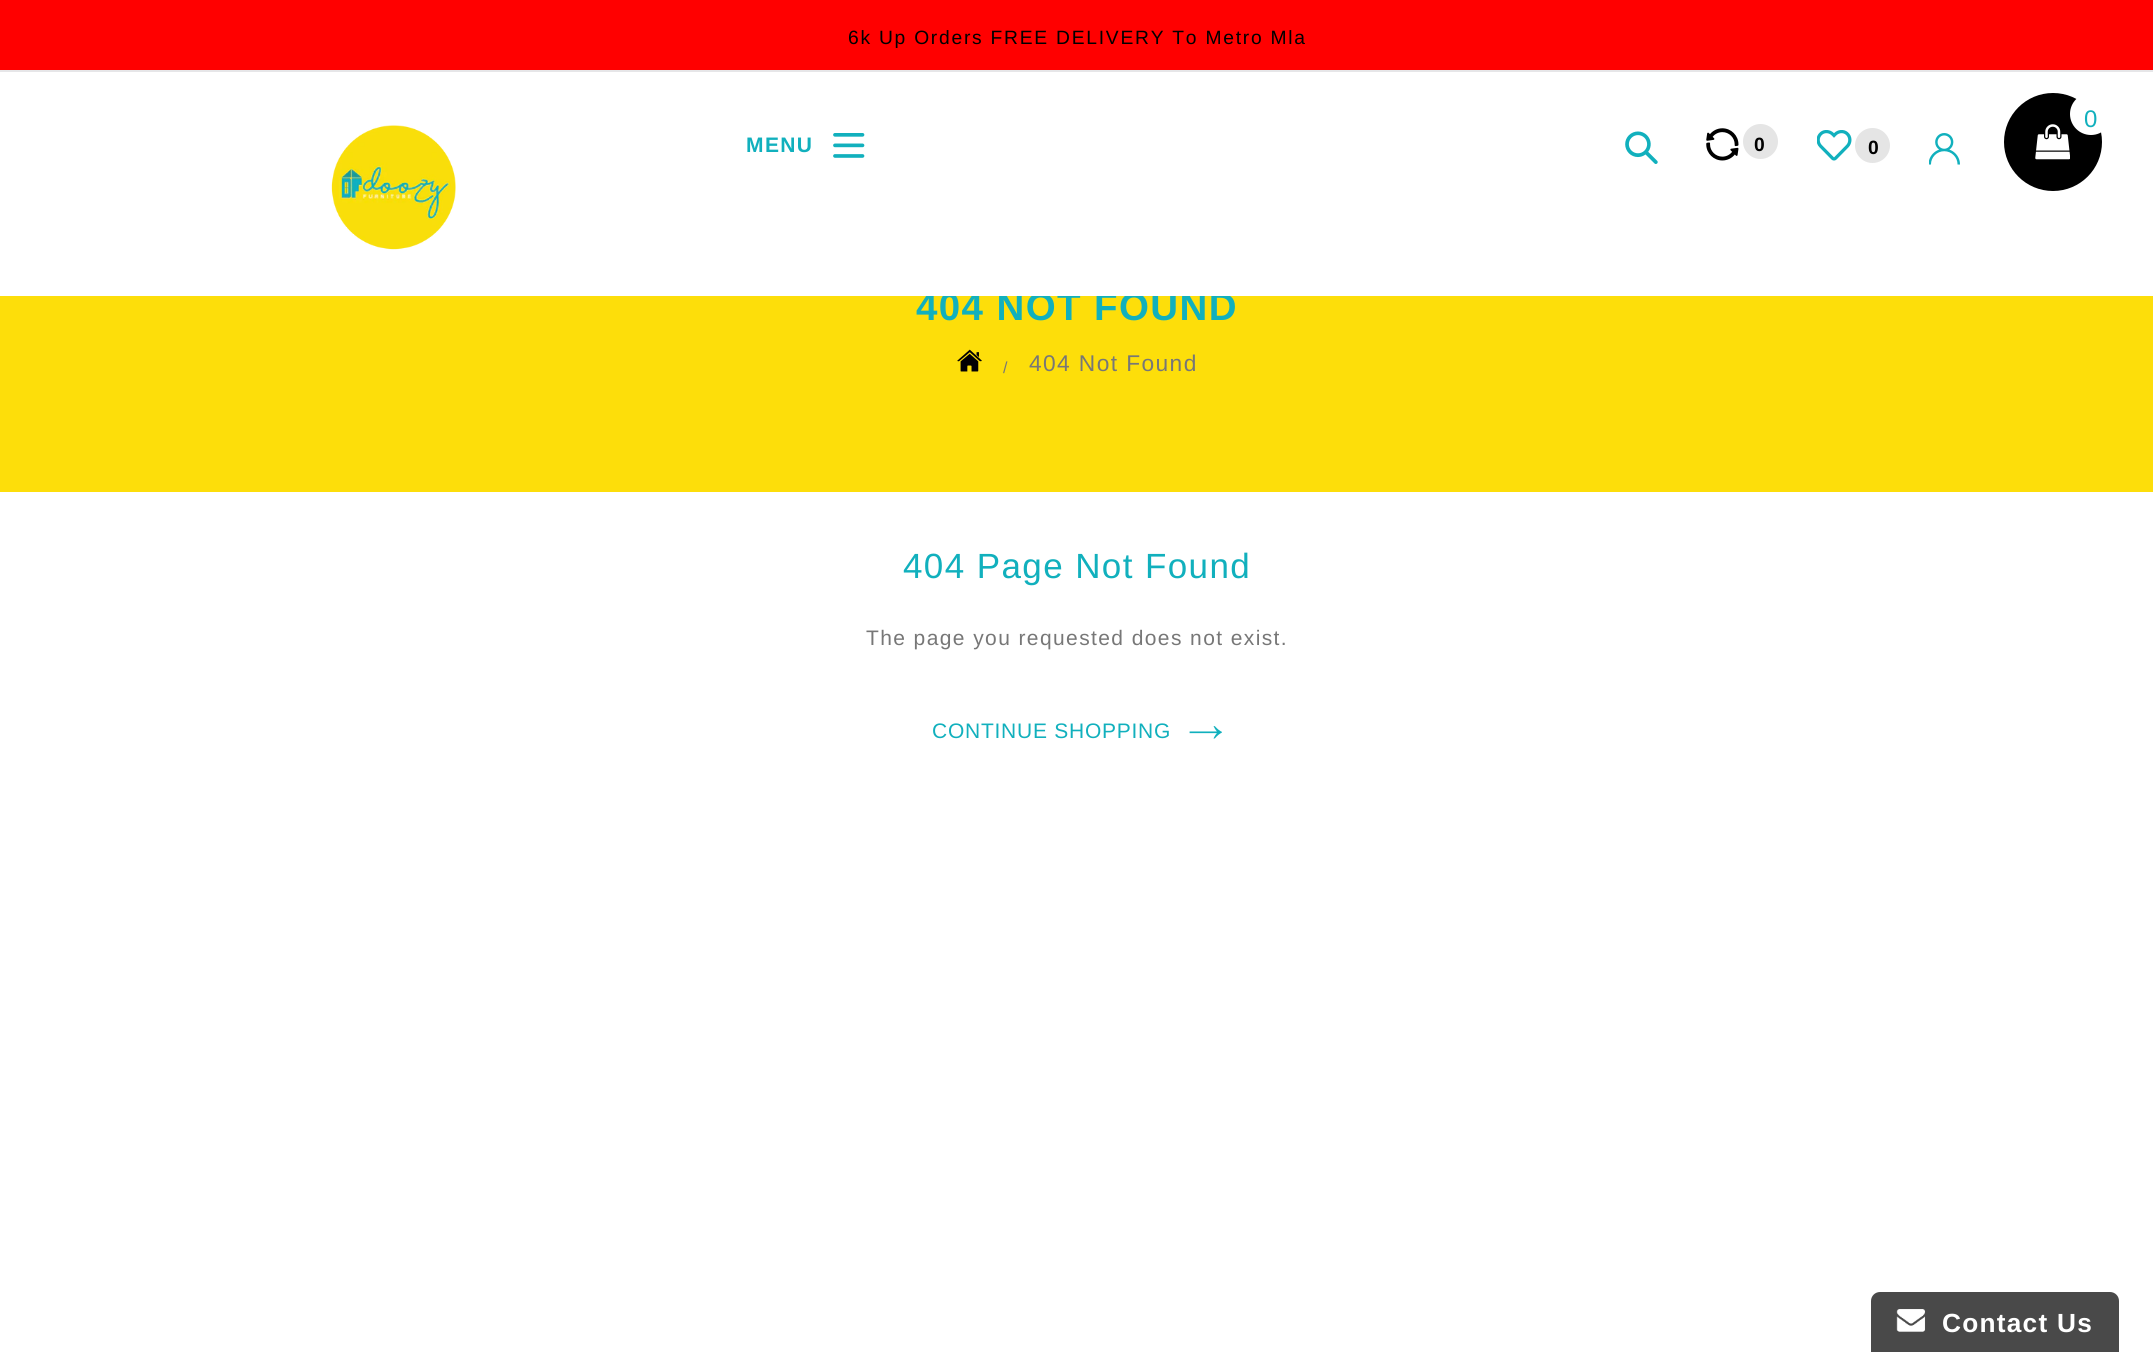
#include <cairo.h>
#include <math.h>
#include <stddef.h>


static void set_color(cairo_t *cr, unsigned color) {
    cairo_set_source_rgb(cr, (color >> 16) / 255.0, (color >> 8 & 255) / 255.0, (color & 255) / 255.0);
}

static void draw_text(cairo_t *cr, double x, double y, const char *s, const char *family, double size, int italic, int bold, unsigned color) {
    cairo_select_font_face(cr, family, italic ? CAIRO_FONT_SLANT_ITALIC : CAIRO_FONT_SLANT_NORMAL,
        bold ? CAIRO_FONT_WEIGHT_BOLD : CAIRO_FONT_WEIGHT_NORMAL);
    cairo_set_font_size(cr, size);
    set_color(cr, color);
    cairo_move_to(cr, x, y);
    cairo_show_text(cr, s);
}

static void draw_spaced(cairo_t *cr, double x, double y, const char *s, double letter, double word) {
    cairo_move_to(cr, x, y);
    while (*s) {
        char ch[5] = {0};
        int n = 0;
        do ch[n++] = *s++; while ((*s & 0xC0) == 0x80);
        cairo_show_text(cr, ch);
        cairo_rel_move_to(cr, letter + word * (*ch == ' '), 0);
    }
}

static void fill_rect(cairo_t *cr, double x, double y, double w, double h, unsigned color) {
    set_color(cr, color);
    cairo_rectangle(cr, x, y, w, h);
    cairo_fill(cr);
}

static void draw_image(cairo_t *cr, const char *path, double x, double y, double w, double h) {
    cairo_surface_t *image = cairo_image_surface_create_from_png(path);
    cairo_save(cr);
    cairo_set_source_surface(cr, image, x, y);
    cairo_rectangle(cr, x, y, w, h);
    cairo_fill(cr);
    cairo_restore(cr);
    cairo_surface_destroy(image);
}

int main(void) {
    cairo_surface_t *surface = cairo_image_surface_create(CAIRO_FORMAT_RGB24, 2153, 1352);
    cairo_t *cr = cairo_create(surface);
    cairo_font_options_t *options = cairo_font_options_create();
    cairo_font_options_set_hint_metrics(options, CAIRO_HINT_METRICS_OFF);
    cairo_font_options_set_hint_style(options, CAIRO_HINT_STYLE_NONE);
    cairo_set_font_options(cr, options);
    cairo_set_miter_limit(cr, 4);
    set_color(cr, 0xFFFFFF);
    cairo_paint(cr);
    fill_rect(cr, 0, 296, 2153, 196, 0xFDDE0A);
    cairo_select_font_face(cr, "Liberation Sans", CAIRO_FONT_SLANT_NORMAL, CAIRO_FONT_WEIGHT_BOLD);
    cairo_set_font_size(cr, 38.5);
    set_color(cr, 0x11B0BD);
    draw_spaced(cr, 916, 320, "404 NOT FOUND", 1.4, 0);
    fill_rect(cr, 926, 293, 305, 3, 0xFFFFFF);
    fill_rect(cr, 0, 0, 2153, 70, 0xFF0000);
    fill_rect(cr, 0, 70, 2153, 2, 0xE6E6E8);
    cairo_select_font_face(cr, "Liberation Sans", CAIRO_FONT_SLANT_NORMAL, CAIRO_FONT_WEIGHT_NORMAL);
    cairo_set_font_size(cr, 19.25);
    set_color(cr, 0x000000);
    draw_spaced(cr, 848, 44, "6k Up Orders FREE DELIVERY To Metro Mla", 1.75, 0);
    draw_image(cr, "assets/img1.png", 331, 125, 125, 125);
    cairo_select_font_face(cr, "Liberation Sans", CAIRO_FONT_SLANT_NORMAL, CAIRO_FONT_WEIGHT_BOLD);
    cairo_set_font_size(cr, 21);
    set_color(cr, 0x11B0BD);
    draw_spaced(cr, 746, 152, "MENU", 1.4, 0);
    draw_image(cr, "assets/img2.png", 833, 133, 32, 25);
    set_color(cr, 0x000000);
    cairo_arc(cr, 2053, 142, 49, 0, 2 * M_PI);
    cairo_fill(cr);
    set_color(cr, 0xFFFFFF);
    cairo_arc(cr, 2091, 114, 21, 0, 2 * M_PI);
    cairo_fill(cr);
    cairo_select_font_face(cr, "Liberation Sans", CAIRO_FONT_SLANT_NORMAL, CAIRO_FONT_WEIGHT_NORMAL);
    cairo_set_font_size(cr, 24);
    set_color(cr, 0x11B0BD);
    draw_spaced(cr, 2084, 127, "0", 1.4, 0);
    draw_image(cr, "assets/img3.png", 2035, 124, 35, 36);
    draw_image(cr, "assets/img4.png", 1625, 131, 33, 33);
    draw_image(cr, "assets/img5.png", 1706, 128, 33, 33);
    set_color(cr, 0xE5E5E5);
    cairo_arc(cr, 1760.5, 141.5, 17.5, 0, 2 * M_PI);
    cairo_fill(cr);
    cairo_select_font_face(cr, "Liberation Sans", CAIRO_FONT_SLANT_NORMAL, CAIRO_FONT_WEIGHT_BOLD);
    cairo_set_font_size(cr, 19.25);
    set_color(cr, 0x000000);
    draw_spaced(cr, 1754, 151, "0", 1.4, 0);
    draw_image(cr, "assets/img6.png", 1817, 130, 35, 31);
    set_color(cr, 0xE5E5E5);
    cairo_arc(cr, 1872.5, 145.5, 17.5, 0, 2 * M_PI);
    cairo_fill(cr);
    set_color(cr, 0x000000);
    draw_spaced(cr, 1868, 154, "0", 1.4, 0);
    draw_image(cr, "assets/img7.png", 1929, 133, 31, 32);
    draw_image(cr, "assets/img8.png", 957, 349, 25, 23);
    draw_text(cr, 1003, 373, "/", "Liberation Sans", 16, 0, 0, 0x777777);
    cairo_set_font_size(cr, 22.75);
    draw_spaced(cr, 1029, 371, "404 Not Found", 1.4, 0);
    cairo_set_font_size(cr, 35);
    set_color(cr, 0x11B0BD);
    draw_spaced(cr, 903, 578, "404 Page Not Found", 1.4, 0);
    cairo_set_font_size(cr, 21);
    set_color(cr, 0x777777);
    draw_spaced(cr, 866, 645, "The page you requested does not exist.", 1.4, 0);
    set_color(cr, 0x11B0BD);
    draw_spaced(cr, 932, 738, "CONTINUE SHOPPING", 0.75, 0);
    draw_image(cr, "assets/img9.png", 1189, 726, 33, 13);
    set_color(cr, 0x494949);
    cairo_new_path(cr);
    cairo_move_to(cr, 1880, 1292);
    cairo_line_to(cr, 2110, 1292);
    cairo_curve_to(cr, 2115, 1292, 2119, 1296, 2119, 1301);
    cairo_line_to(cr, 2119, 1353);
    cairo_line_to(cr, 1871, 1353);
    cairo_line_to(cr, 1871, 1301);
    cairo_curve_to(cr, 1871, 1296, 1875, 1292, 1880, 1292);
    cairo_close_path(cr);
    cairo_fill(cr);
    draw_image(cr, "assets/img10.png", 1896, 1309, 30, 23);
    cairo_select_font_face(cr, "Liberation Sans", CAIRO_FONT_SLANT_NORMAL, CAIRO_FONT_WEIGHT_BOLD);
    cairo_set_font_size(cr, 26.25);
    set_color(cr, 0xFFFFFF);
    draw_spaced(cr, 1942, 1332, "Contact Us", 1.25, 0);
    cairo_surface_write_to_png(surface, "output.png");
    cairo_font_options_destroy(options);
    cairo_destroy(cr);
    cairo_surface_destroy(surface);
    return 0;
}
